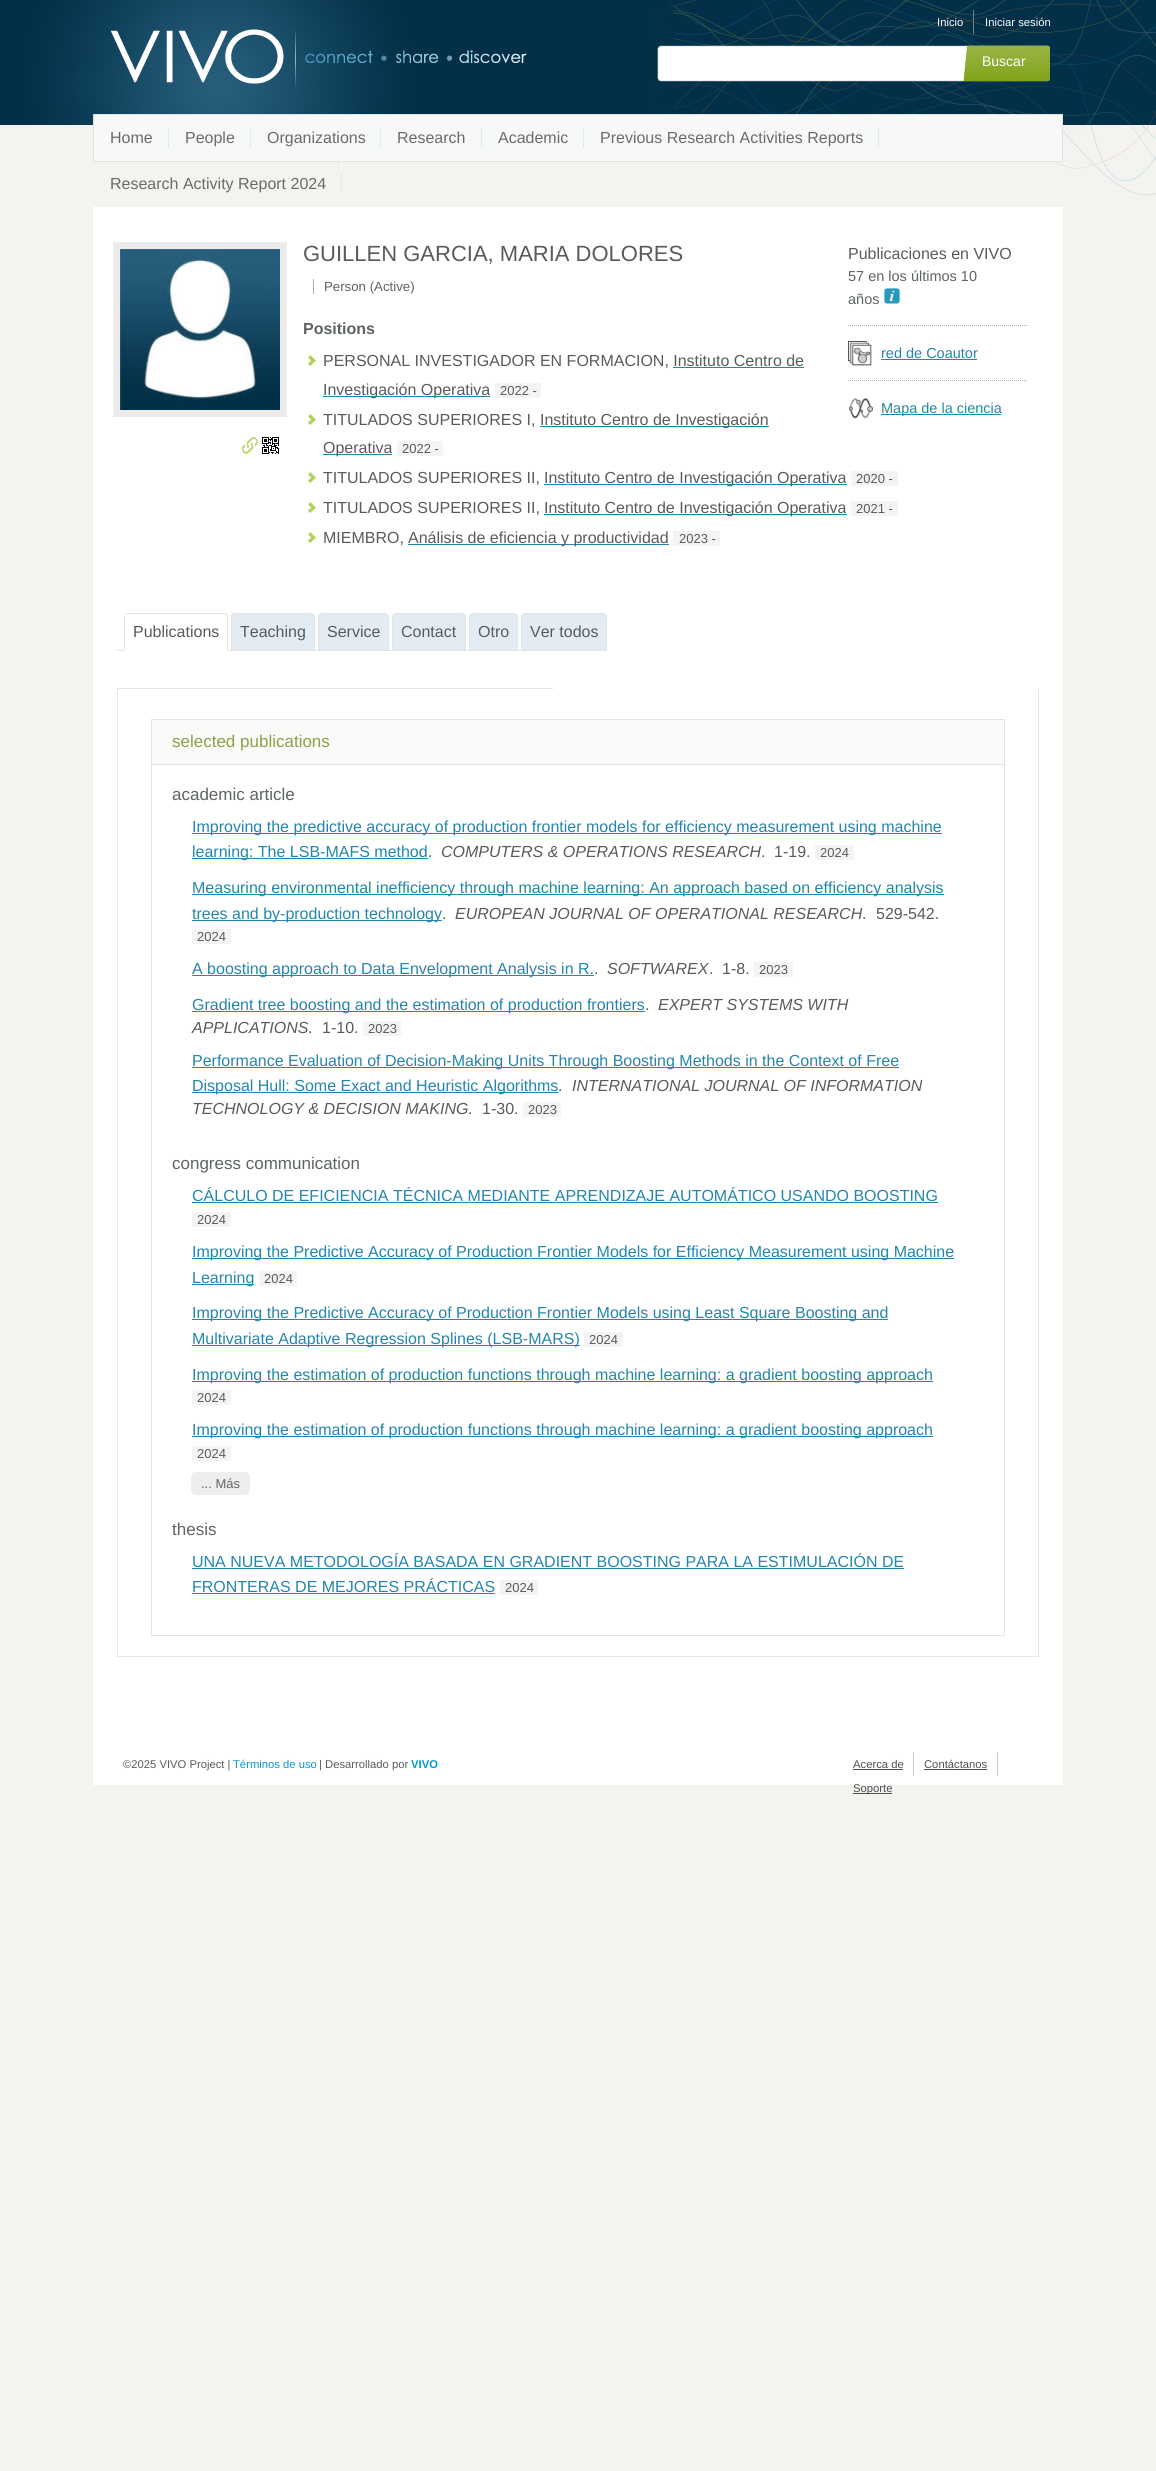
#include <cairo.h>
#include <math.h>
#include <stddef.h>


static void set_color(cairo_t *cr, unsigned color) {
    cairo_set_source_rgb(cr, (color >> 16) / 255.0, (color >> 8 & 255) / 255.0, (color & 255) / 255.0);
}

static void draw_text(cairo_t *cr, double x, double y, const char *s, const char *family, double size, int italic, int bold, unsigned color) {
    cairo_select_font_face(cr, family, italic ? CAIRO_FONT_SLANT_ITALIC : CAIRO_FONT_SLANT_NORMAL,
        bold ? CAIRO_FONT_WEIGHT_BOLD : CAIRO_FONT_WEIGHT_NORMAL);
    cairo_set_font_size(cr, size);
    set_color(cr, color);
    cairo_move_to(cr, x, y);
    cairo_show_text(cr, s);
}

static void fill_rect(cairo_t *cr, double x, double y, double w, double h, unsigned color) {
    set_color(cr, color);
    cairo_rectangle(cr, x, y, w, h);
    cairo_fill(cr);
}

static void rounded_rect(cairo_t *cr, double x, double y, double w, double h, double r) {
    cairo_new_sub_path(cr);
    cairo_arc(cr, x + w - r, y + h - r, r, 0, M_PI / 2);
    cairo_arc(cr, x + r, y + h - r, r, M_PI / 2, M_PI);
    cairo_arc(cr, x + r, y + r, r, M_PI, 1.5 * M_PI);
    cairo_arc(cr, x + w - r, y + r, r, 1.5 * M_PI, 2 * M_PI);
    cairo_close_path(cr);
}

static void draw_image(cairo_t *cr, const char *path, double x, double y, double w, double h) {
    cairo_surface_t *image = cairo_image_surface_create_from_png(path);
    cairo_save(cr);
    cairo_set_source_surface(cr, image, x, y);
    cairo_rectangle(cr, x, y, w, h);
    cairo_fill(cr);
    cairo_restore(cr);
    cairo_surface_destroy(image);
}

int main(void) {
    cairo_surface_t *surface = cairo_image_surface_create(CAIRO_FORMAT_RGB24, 1156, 2471);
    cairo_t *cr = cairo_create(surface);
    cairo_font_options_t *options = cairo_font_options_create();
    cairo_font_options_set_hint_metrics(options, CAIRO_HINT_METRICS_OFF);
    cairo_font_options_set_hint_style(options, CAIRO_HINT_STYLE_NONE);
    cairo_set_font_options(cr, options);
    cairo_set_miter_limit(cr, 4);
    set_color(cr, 0xF3F3F0);
    cairo_paint(cr);
    draw_image(cr, "assets/img1.png", 0, 0, 1156, 195);
    fill_rect(cr, 973, 10, 1, 24, 0x7C7D7F);
    draw_text(cr, 937, 26, "Inicio", "Liberation Sans", 11.25, 0, 0, 0xFFFFFF);
    draw_text(cr, 985, 26, "Iniciar sesión", "Liberation Sans", 11.25, 0, 0, 0xFFFFFF);
    draw_image(cr, "assets/img2.png", 111, 29, 416, 58);
    draw_image(cr, "assets/img3.png", 657, 45, 393, 37);
    draw_text(cr, 982, 66, "Buscar", "Liberation Sans", 14, 0, 0, 0xFFFFFF);
    set_color(cr, 0xF7F9F9);
    cairo_rectangle(cr, 93.5, 114.5, 969, 47);
    cairo_fill_preserve(cr);
    set_color(cr, 0xDCE4E3);
    cairo_set_line_width(cr, 1);
    cairo_stroke(cr);
    draw_image(cr, "assets/img4.png", 168, 128, 1, 19);
    draw_text(cr, 110, 143, "Home", "Liberation Sans", 16, 0, 0, 0x706A66);
    draw_image(cr, "assets/img4.png", 250, 128, 1, 19);
    draw_text(cr, 185, 143, "People", "Liberation Sans", 16, 0, 0, 0x706A66);
    draw_image(cr, "assets/img4.png", 380, 128, 1, 19);
    draw_text(cr, 267, 143, "Organizations", "Liberation Sans", 16, 0, 0, 0x706A66);
    draw_image(cr, "assets/img4.png", 481, 128, 1, 19);
    draw_text(cr, 397, 143, "Research", "Liberation Sans", 16, 0, 0, 0x706A66);
    draw_image(cr, "assets/img4.png", 583, 128, 1, 19);
    draw_text(cr, 498, 143, "Academic", "Liberation Sans", 16, 0, 0, 0x706A66);
    draw_image(cr, "assets/img4.png", 878, 128, 1, 19);
    draw_text(cr, 600, 143, "Previous Research Activities Reports", "Liberation Sans", 16, 0, 0, 0x706A66);
    draw_image(cr, "assets/img5.png", 341, 161, 1, 44);
    draw_text(cr, 110, 189, "Research Activity Report 2024", "Liberation Sans", 16, 0, 0, 0x706A66);
    fill_rect(cr, 93, 207, 970, 1578, 0xFFFFFF);
    cairo_rectangle(cr, 116.5, 245.5, 167, 168);
    set_color(cr, 0xEBEBEB);
    cairo_set_line_width(cr, 7);
    cairo_stroke(cr);
    draw_image(cr, "assets/img6.png", 120, 249, 160, 161);
    draw_image(cr, "assets/img7.png", 242, 437, 16, 17);
    draw_image(cr, "assets/img8.png", 262, 437, 17, 17);
    draw_text(cr, 303, 261, "GUILLEN GARCIA, MARIA DOLORES", "Liberation Sans", 22, 0, 0, 0x595B5B);
    draw_text(cr, 324, 291, "Person (Active)", "Liberation Sans", 13.25, 0, 0, 0x5E6363);
    fill_rect(cr, 313, 279, 1, 15, 0xA6B1B0);
    draw_text(cr, 303, 334, "Positions", "Liberation Sans", 16, 0, 1, 0x5E6363);
    draw_image(cr, "assets/img9.png", 308, 355, 8, 11);
    draw_text(cr, 323, 366, "PERSONAL INVESTIGADOR EN FORMACION, Instituto Centro de", "Liberation Sans", 16, 0, 0, 0x595B5B);
    fill_rect(cr, 323, 396, 167, 1, 0x2485AE);
    draw_text(cr, 323, 395, "Investigación Operativa", "Liberation Sans", 16, 0, 0, 0x595B5B);
    fill_rect(cr, 673, 367, 131, 1, 0x2485AE);
    fill_rect(cr, 495, 383, 46, 15, 0xF4F4F4);
    draw_text(cr, 500, 395, "2022 -", "Liberation Sans", 13, 0, 0, 0x595B5B);
    draw_image(cr, "assets/img9.png", 308, 414, 8, 11);
    draw_text(cr, 323, 425, "TITULADOS SUPERIORES I,", "Liberation Sans", 16, 0, 0, 0x595B5B);
    fill_rect(cr, 540, 426, 229, 1, 0x2485AE);
    draw_text(cr, 540, 425, "Instituto Centro de Investigación", "Liberation Sans", 16, 0, 0, 0x595B5B);
    fill_rect(cr, 323, 454, 69, 1, 0x2485AE);
    draw_text(cr, 323, 453, "Operativa", "Liberation Sans", 16, 0, 0, 0x595B5B);
    fill_rect(cr, 397, 441, 46, 15, 0xF4F4F4);
    draw_text(cr, 402, 453, "2022 -", "Liberation Sans", 13, 0, 0, 0x595B5B);
    draw_image(cr, "assets/img9.png", 308, 472, 8, 11);
    draw_text(cr, 323, 483, "TITULADOS SUPERIORES II,", "Liberation Sans", 16, 0, 0, 0x595B5B);
    fill_rect(cr, 544, 484, 303, 1, 0x2485AE);
    draw_text(cr, 544, 483, "Instituto Centro de Investigación Operativa", "Liberation Sans", 16, 0, 0, 0x595B5B);
    fill_rect(cr, 851, 471, 47, 15, 0xF4F4F4);
    draw_text(cr, 856, 483, "2020 -", "Liberation Sans", 13, 0, 0, 0x595B5B);
    draw_image(cr, "assets/img9.png", 308, 502, 8, 11);
    draw_text(cr, 323, 513, "TITULADOS SUPERIORES II,", "Liberation Sans", 16, 0, 0, 0x595B5B);
    fill_rect(cr, 544, 514, 303, 1, 0x2485AE);
    draw_text(cr, 544, 513, "Instituto Centro de Investigación Operativa", "Liberation Sans", 16, 0, 0, 0x595B5B);
    fill_rect(cr, 851, 501, 47, 15, 0xF4F4F4);
    draw_text(cr, 856, 513, "2021 -", "Liberation Sans", 13, 0, 0, 0x595B5B);
    draw_image(cr, "assets/img9.png", 308, 532, 8, 11);
    draw_text(cr, 323, 543, "MIEMBRO,", "Liberation Sans", 16, 0, 0, 0x595B5B);
    fill_rect(cr, 408, 544, 261, 1, 0x2485AE);
    draw_text(cr, 408, 543, "Análisis de eficiencia y productividad", "Liberation Sans", 16, 0, 0, 0x595B5B);
    fill_rect(cr, 673, 531, 47, 15, 0xF4F4F4);
    draw_text(cr, 679, 543, "2023 -", "Liberation Sans", 13, 0, 0, 0x595B5B);
    draw_text(cr, 848, 259, "Publicaciones en VIVO", "Liberation Sans", 16, 0, 0, 0x595B5B);
    draw_text(cr, 848, 281, "57 en los últimos 10", "Liberation Sans", 14.5, 0, 0, 0x5E6363);
    draw_text(cr, 848, 304, "años", "Liberation Sans", 14.5, 0, 0, 0x5E6363);
    draw_image(cr, "assets/img10.png", 884, 288, 16, 16);
    cairo_new_path(cr);
    cairo_move_to(cr, 848, 325.5);
    cairo_line_to(cr, 1028, 325.5);
    set_color(cr, 0xA6B1B0);
    cairo_set_line_width(cr, 1);
    cairo_set_dash(cr, (double[]){1, 1}, 2, 0);
    cairo_stroke(cr);
    draw_image(cr, "assets/img11.png", 848, 341, 24, 25);
    draw_text(cr, 881, 358, "red de Coautor", "Liberation Sans", 14.5, 0, 0, 0x2485AE);
    fill_rect(cr, 881, 359, 96, 1, 0x2485AE);
    cairo_new_path(cr);
    cairo_move_to(cr, 848, 380.5);
    cairo_line_to(cr, 1028, 380.5);
    set_color(cr, 0xA6B1B0);
    cairo_stroke(cr);
    draw_image(cr, "assets/img12.png", 848, 398, 25, 21);
    fill_rect(cr, 881, 414, 120, 1, 0x2485AE);
    draw_text(cr, 881, 413, "Mapa de la ciencia", "Liberation Sans", 14.5, 0, 0, 0x2485AE);
    set_color(cr, 0xDFE6E5);
    cairo_new_path(cr);
    cairo_move_to(cr, 128, 613);
    cairo_line_to(cr, 125, 614);
    cairo_line_to(cr, 126, 615);
    cairo_line_to(cr, 128, 614);
    cairo_line_to(cr, 224, 614);
    cairo_line_to(cr, 226, 615);
    cairo_line_to(cr, 227, 614);
    cairo_line_to(cr, 224, 613);
    cairo_close_path(cr);
    cairo_fill(cr);
    cairo_new_path(cr);
    cairo_move_to(cr, 228, 651);
    cairo_line_to(cr, 228, 617);
    cairo_curve_to(cr, 228, 616, 227.5, 615, 227, 614);
    cairo_line_to(cr, 226, 615);
    cairo_curve_to(cr, 227, 615, 227, 616, 227, 617);
    cairo_line_to(cr, 227, 650);
    cairo_close_path(cr);
    cairo_fill(cr);
    set_color(cr, 0xFFFFFF);
    cairo_new_path(cr);
    cairo_move_to(cr, 228, 651);
    cairo_line_to(cr, 227, 650);
    cairo_line_to(cr, 125, 650);
    cairo_line_to(cr, 124, 651);
    cairo_close_path(cr);
    cairo_fill(cr);
    set_color(cr, 0xDFE6E5);
    cairo_new_path(cr);
    cairo_move_to(cr, 124, 651);
    cairo_line_to(cr, 125, 650);
    cairo_line_to(cr, 125, 617);
    cairo_curve_to(cr, 125, 616, 125, 615, 126, 615);
    cairo_line_to(cr, 125, 614);
    cairo_curve_to(cr, 124.5, 615, 124, 616, 124, 617);
    cairo_close_path(cr);
    cairo_fill(cr);
    draw_text(cr, 133, 637, "Publications", "Liberation Sans", 16, 0, 0, 0x595B5B);
    set_color(cr, 0xE4ECF3);
    cairo_new_path(cr);
    cairo_move_to(cr, 235, 613.5);
    cairo_line_to(cr, 311, 613.5);
    cairo_curve_to(cr, 313, 613.5, 314.5, 615, 314.5, 617);
    cairo_line_to(cr, 314.5, 650.5);
    cairo_line_to(cr, 231.5, 650.5);
    cairo_line_to(cr, 231.5, 617);
    cairo_curve_to(cr, 231.5, 615, 233, 613.5, 235, 613.5);
    cairo_close_path(cr);
    cairo_fill_preserve(cr);
    set_color(cr, 0xDFE6E5);
    cairo_set_dash(cr, NULL, 0, 0);
    cairo_stroke(cr);
    draw_text(cr, 240, 637, "Teaching", "Liberation Sans", 16, 0, 0, 0x595B5B);
    set_color(cr, 0xE4ECF3);
    cairo_new_path(cr);
    cairo_move_to(cr, 322, 613.5);
    cairo_line_to(cr, 385, 613.5);
    cairo_curve_to(cr, 387, 613.5, 388.5, 615, 388.5, 617);
    cairo_line_to(cr, 388.5, 650.5);
    cairo_line_to(cr, 318.5, 650.5);
    cairo_line_to(cr, 318.5, 617);
    cairo_curve_to(cr, 318.5, 615, 320, 613.5, 322, 613.5);
    cairo_close_path(cr);
    cairo_fill_preserve(cr);
    set_color(cr, 0xDFE6E5);
    cairo_stroke(cr);
    draw_text(cr, 327, 637, "Service", "Liberation Sans", 16, 0, 0, 0x595B5B);
    set_color(cr, 0xE4ECF3);
    cairo_new_path(cr);
    cairo_move_to(cr, 396, 613.5);
    cairo_line_to(cr, 462, 613.5);
    cairo_curve_to(cr, 464, 613.5, 465.5, 615, 465.5, 617);
    cairo_line_to(cr, 465.5, 650.5);
    cairo_line_to(cr, 392.5, 650.5);
    cairo_line_to(cr, 392.5, 617);
    cairo_curve_to(cr, 392.5, 615, 394, 613.5, 396, 613.5);
    cairo_close_path(cr);
    cairo_fill_preserve(cr);
    set_color(cr, 0xDFE6E5);
    cairo_stroke(cr);
    draw_text(cr, 401, 637, "Contact", "Liberation Sans", 16, 0, 0, 0x595B5B);
    set_color(cr, 0xE4ECF3);
    cairo_new_path(cr);
    cairo_move_to(cr, 473, 613.5);
    cairo_line_to(cr, 514, 613.5);
    cairo_curve_to(cr, 516, 613.5, 517.5, 615, 517.5, 617);
    cairo_line_to(cr, 517.5, 650.5);
    cairo_line_to(cr, 469.5, 650.5);
    cairo_line_to(cr, 469.5, 617);
    cairo_curve_to(cr, 469.5, 615, 471, 613.5, 473, 613.5);
    cairo_close_path(cr);
    cairo_fill_preserve(cr);
    set_color(cr, 0xDFE6E5);
    cairo_stroke(cr);
    draw_text(cr, 478, 637, "Otro", "Liberation Sans", 16, 0, 0, 0x595B5B);
    set_color(cr, 0xE4ECF3);
    cairo_new_path(cr);
    cairo_move_to(cr, 525, 613.5);
    cairo_line_to(cr, 603, 613.5);
    cairo_curve_to(cr, 605, 613.5, 606.5, 615, 606.5, 617);
    cairo_line_to(cr, 606.5, 650.5);
    cairo_line_to(cr, 521.5, 650.5);
    cairo_line_to(cr, 521.5, 617);
    cairo_curve_to(cr, 521.5, 615, 523, 613.5, 525, 613.5);
    cairo_close_path(cr);
    cairo_fill_preserve(cr);
    set_color(cr, 0xDFE6E5);
    cairo_stroke(cr);
    draw_text(cr, 530, 637, "Ver todos", "Liberation Sans", 16, 0, 0, 0x595B5B);
    fill_rect(cr, 117, 650, 7, 1, 0xDFE6E5);
    fill_rect(cr, 228, 650, 3, 1, 0xDFE6E5);
    fill_rect(cr, 315, 650, 3, 1, 0xDFE6E5);
    fill_rect(cr, 389, 650, 3, 1, 0xDFE6E5);
    fill_rect(cr, 466, 650, 3, 1, 0xDFE6E5);
    fill_rect(cr, 518, 650, 3, 1, 0xDFE6E5);
    fill_rect(cr, 117, 688, 436, 1, 0xDFE6E5);
    fill_rect(cr, 1038, 689, 1, 968, 0xDFEBE5);
    fill_rect(cr, 117, 1656, 922, 1, 0xDFEBE5);
    fill_rect(cr, 117, 689, 1, 968, 0xDFEBE5);
    cairo_rectangle(cr, 151.5, 719.5, 853, 916);
    set_color(cr, 0xDFE6E5);
    cairo_stroke(cr);
    fill_rect(cr, 152, 720, 852, 44, 0xFAFAF9);
    fill_rect(cr, 152, 764, 852, 1, 0xDFE6E5);
    draw_text(cr, 172, 747, "selected publications", "Liberation Sans", 17, 0, 0, 0x8AA149);
    draw_text(cr, 172, 800, "academic article", "Liberation Sans", 17, 0, 0, 0x5E6363);
    fill_rect(cr, 192, 833, 750, 1, 0x2485AE);
    draw_text(cr, 192, 832, "Improving the predictive accuracy of production frontier models for efficiency measurement using machine", "Liberation Sans", 16, 0, 0, 0x2485AE);
    fill_rect(cr, 192, 858, 236, 1, 0x2485AE);
    draw_text(cr, 192, 857, "learning: The LSB-MAFS method", "Liberation Sans", 16, 0, 0, 0x2485AE);
    draw_text(cr, 428, 857, ".", "Liberation Sans", 16, 0, 0, 0x595B5B);
    draw_text(cr, 441, 857, "COMPUTERS & OPERATIONS RESEARCH", "Liberation Sans", 16, 1, 0, 0x595B5B);
    draw_text(cr, 761, 857, ".", "Liberation Sans", 16, 0, 0, 0x595B5B);
    draw_text(cr, 774, 857, "1-19.", "Liberation Sans", 16, 0, 0, 0x595B5B);
    fill_rect(cr, 815, 845, 39, 15, 0xF4F4F4);
    draw_text(cr, 820, 857, "2024", "Liberation Sans", 13, 0, 0, 0x595B5B);
    fill_rect(cr, 192, 894, 752, 1, 0x2485AE);
    draw_text(cr, 192, 893, "Measuring environmental inefficiency through machine learning: An approach based on efficiency analysis", "Liberation Sans", 16, 0, 0, 0x2485AE);
    fill_rect(cr, 192, 920, 250, 1, 0x2485AE);
    draw_text(cr, 192, 919, "trees and by-production technology", "Liberation Sans", 16, 0, 0, 0x2485AE);
    draw_text(cr, 442, 919, ".", "Liberation Sans", 16, 0, 0, 0x595B5B);
    draw_text(cr, 455, 919, "EUROPEAN JOURNAL OF OPERATIONAL RESEARCH", "Liberation Sans", 16, 1, 0, 0x595B5B);
    draw_text(cr, 862, 919, ".", "Liberation Sans", 16, 0, 0, 0x595B5B);
    draw_text(cr, 876, 919, "529-542.", "Liberation Sans", 16, 0, 0, 0x595B5B);
    fill_rect(cr, 192, 929, 39, 15, 0xF4F4F4);
    draw_text(cr, 197, 941, "2024", "Liberation Sans", 13, 0, 0, 0x595B5B);
    fill_rect(cr, 192, 975, 402, 1, 0x2485AE);
    draw_text(cr, 192, 974, "A boosting approach to Data Envelopment Analysis in R.", "Liberation Sans", 16, 0, 0, 0x2485AE);
    draw_text(cr, 594, 974, ".", "Liberation Sans", 16, 0, 0, 0x595B5B);
    draw_text(cr, 607, 974, "SOFTWAREX", "Liberation Sans", 16, 1, 0, 0x595B5B);
    draw_text(cr, 709, 974, ".", "Liberation Sans", 16, 0, 0, 0x595B5B);
    draw_text(cr, 722, 974, "1-8.", "Liberation Sans", 16, 0, 0, 0x595B5B);
    fill_rect(cr, 754, 962, 39, 15, 0xF4F4F4);
    draw_text(cr, 759, 974, "2023", "Liberation Sans", 13, 0, 0, 0x595B5B);
    fill_rect(cr, 192, 1011, 453, 1, 0x2485AE);
    draw_text(cr, 192, 1010, "Gradient tree boosting and the estimation of production frontiers", "Liberation Sans", 16, 0, 0, 0x2485AE);
    draw_text(cr, 645, 1010, ".", "Liberation Sans", 16, 0, 0, 0x595B5B);
    draw_text(cr, 658, 1010, "EXPERT SYSTEMS WITH", "Liberation Sans", 16, 1, 0, 0x595B5B);
    draw_text(cr, 192, 1033, "APPLICATIONS", "Liberation Sans", 16, 1, 0, 0x595B5B);
    draw_text(cr, 308, 1033, ".", "Liberation Sans", 16, 0, 0, 0x595B5B);
    draw_text(cr, 322, 1033, "1-10.", "Liberation Sans", 16, 0, 0, 0x595B5B);
    fill_rect(cr, 363, 1021, 38, 15, 0xF4F4F4);
    draw_text(cr, 368, 1033, "2023", "Liberation Sans", 13, 0, 0, 0x595B5B);
    fill_rect(cr, 192, 1067, 707, 1, 0x2485AE);
    draw_text(cr, 192, 1066, "Performance Evaluation of Decision-Making Units Through Boosting Methods in the Context of Free", "Liberation Sans", 16, 0, 0, 0x2485AE);
    fill_rect(cr, 192, 1092, 366, 1, 0x2485AE);
    draw_text(cr, 192, 1091, "Disposal Hull: Some Exact and Heuristic Algorithms", "Liberation Sans", 16, 0, 0, 0x2485AE);
    draw_text(cr, 558, 1091, ".", "Liberation Sans", 16, 0, 0, 0x595B5B);
    draw_text(cr, 572, 1091, "INTERNATIONAL JOURNAL OF INFORMATION", "Liberation Sans", 16, 1, 0, 0x595B5B);
    draw_text(cr, 192, 1114, "TECHNOLOGY & DECISION MAKING", "Liberation Sans", 16, 1, 0, 0x595B5B);
    draw_text(cr, 468, 1114, ".", "Liberation Sans", 16, 0, 0, 0x595B5B);
    draw_text(cr, 482, 1114, "1-30.", "Liberation Sans", 16, 0, 0, 0x595B5B);
    fill_rect(cr, 523, 1102, 38, 15, 0xF4F4F4);
    draw_text(cr, 528, 1114, "2023", "Liberation Sans", 13, 0, 0, 0x595B5B);
    draw_text(cr, 172, 1169, "congress communication", "Liberation Sans", 17, 0, 0, 0x5E6363);
    draw_text(cr, 192, 1201, "CÁLCULO DE EFICIENCIA TÉCNICA MEDIANTE APRENDIZAJE AUTOMÁTICO USANDO BOOSTING", "Liberation Sans", 16, 0, 0, 0x2485AE);
    fill_rect(cr, 192, 1202, 746, 1, 0x2485AE);
    fill_rect(cr, 192, 1212, 39, 15, 0xF4F4F4);
    draw_text(cr, 197, 1224, "2024", "Liberation Sans", 13, 0, 0, 0x595B5B);
    fill_rect(cr, 192, 1258, 762, 1, 0x2485AE);
    draw_text(cr, 192, 1257, "Improving the Predictive Accuracy of Production Frontier Models for Efficiency Measurement using Machine", "Liberation Sans", 16, 0, 0, 0x2485AE);
    fill_rect(cr, 192, 1284, 62, 1, 0x2485AE);
    draw_text(cr, 192, 1283, "Learning", "Liberation Sans", 16, 0, 0, 0x2485AE);
    fill_rect(cr, 259, 1271, 38, 15, 0xF4F4F4);
    draw_text(cr, 264, 1283, "2024", "Liberation Sans", 13, 0, 0, 0x595B5B);
    fill_rect(cr, 192, 1319, 696, 1, 0x2485AE);
    draw_text(cr, 192, 1318, "Improving the Predictive Accuracy of Production Frontier Models using Least Square Boosting and", "Liberation Sans", 16, 0, 0, 0x2485AE);
    fill_rect(cr, 192, 1345, 388, 1, 0x2485AE);
    draw_text(cr, 192, 1344, "Multivariate Adaptive Regression Splines (LSB-MARS)", "Liberation Sans", 16, 0, 0, 0x2485AE);
    fill_rect(cr, 584, 1332, 39, 15, 0xF4F4F4);
    draw_text(cr, 589, 1344, "2024", "Liberation Sans", 13, 0, 0, 0x595B5B);
    fill_rect(cr, 192, 1381, 741, 1, 0x2485AE);
    draw_text(cr, 192, 1380, "Improving the estimation of production functions through machine learning: a gradient boosting approach", "Liberation Sans", 16, 0, 0, 0x2485AE);
    fill_rect(cr, 192, 1390, 39, 15, 0xF4F4F4);
    draw_text(cr, 197, 1402, "2024", "Liberation Sans", 13, 0, 0, 0x595B5B);
    fill_rect(cr, 192, 1436, 741, 1, 0x2485AE);
    draw_text(cr, 192, 1435, "Improving the estimation of production functions through machine learning: a gradient boosting approach", "Liberation Sans", 16, 0, 0, 0x2485AE);
    fill_rect(cr, 192, 1446, 39, 15, 0xF4F4F4);
    draw_text(cr, 197, 1458, "2024", "Liberation Sans", 13, 0, 0, 0x595B5B);
    set_color(cr, 0xEEEEEE);
    rounded_rect(cr, 191, 1472, 59, 23, 5);
    cairo_fill(cr);
    draw_text(cr, 201, 1488, "... Más", "Liberation Sans", 13, 0, 0, 0x666666);
    draw_text(cr, 172, 1535, "thesis", "Liberation Sans", 17, 0, 0, 0x5E6363);
    draw_text(cr, 192, 1567, "UNA NUEVA METODOLOGÍA BASADA EN GRADIENT BOOSTING PARA LA ESTIMULACIÓN DE", "Liberation Sans", 16, 0, 0, 0x2485AE);
    fill_rect(cr, 192, 1568, 712, 1, 0x2485AE);
    draw_text(cr, 192, 1592, "FRONTERAS DE MEJORES PRÁCTICAS", "Liberation Sans", 16, 0, 0, 0x2485AE);
    fill_rect(cr, 192, 1593, 303, 1, 0x2485AE);
    fill_rect(cr, 500, 1580, 38, 15, 0xF4F4F4);
    draw_text(cr, 505, 1592, "2024", "Liberation Sans", 13, 0, 0, 0x595B5B);
    draw_text(cr, 123, 1768, "©2025 VIVO Project |", "Liberation Sans", 11.25, 0, 0, 0x595B5B);
    draw_text(cr, 233, 1768, "Términos de uso", "Liberation Sans", 11.25, 0, 0, 0x0099CC);
    draw_text(cr, 319, 1768, "| Desarrollado por", "Liberation Sans", 11.25, 0, 0, 0x595B5B);
    draw_text(cr, 411, 1768, "VIVO", "Liberation Sans", 11.25, 0, 1, 0x0099CC);
    fill_rect(cr, 913, 1752, 1, 24, 0xC9C8C8);
    draw_text(cr, 853, 1768, "Acerca de", "Liberation Sans", 11.25, 0, 0, 0x4E5051);
    fill_rect(cr, 853, 1769, 50, 1, 0x4E5051);
    fill_rect(cr, 997, 1752, 1, 24, 0xC9C8C8);
    draw_text(cr, 924, 1768, "Contáctanos", "Liberation Sans", 11.25, 0, 0, 0x4E5051);
    fill_rect(cr, 924, 1769, 63, 1, 0x4E5051);
    fill_rect(cr, 853, 1793, 39, 1, 0x4E5051);
    draw_text(cr, 853, 1792, "Soporte", "Liberation Sans", 11.25, 0, 0, 0x4E5051);
    cairo_surface_write_to_png(surface, "output.png");
    cairo_font_options_destroy(options);
    cairo_destroy(cr);
    cairo_surface_destroy(surface);
    return 0;
}
